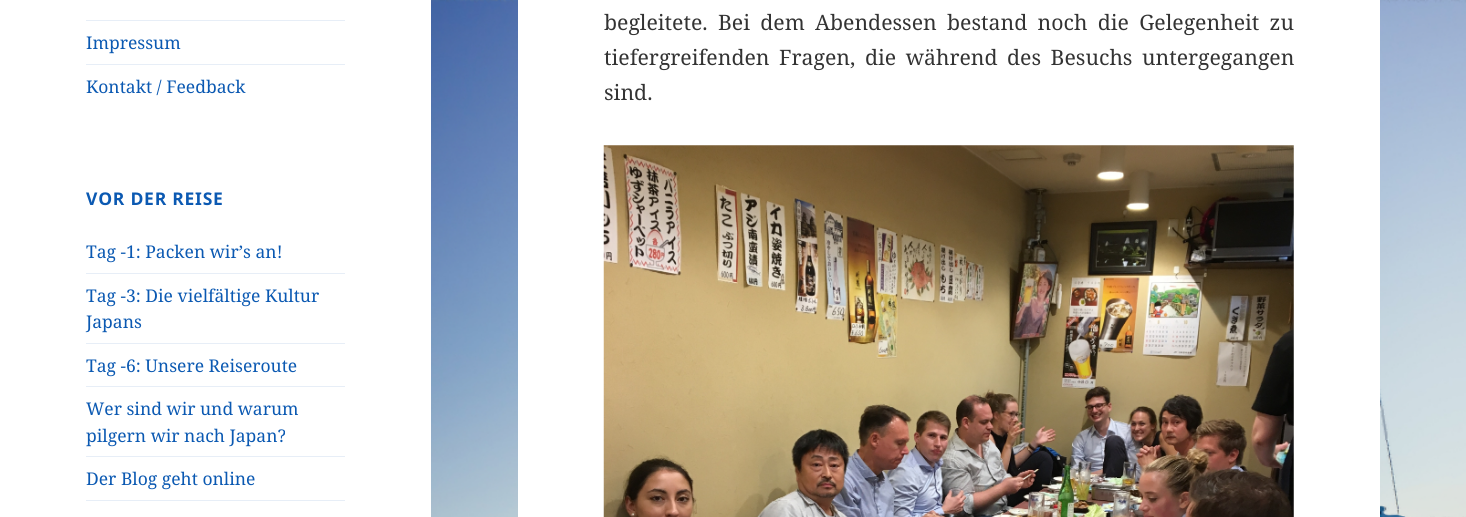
#include <cairo.h>
#include <math.h>
#include <stddef.h>


static void set_color(cairo_t *cr, unsigned color) {
    cairo_set_source_rgb(cr, (color >> 16) / 255.0, (color >> 8 & 255) / 255.0, (color & 255) / 255.0);
}

static void draw_text(cairo_t *cr, double x, double y, const char *s, const char *family, double size, int italic, int bold, unsigned color) {
    cairo_select_font_face(cr, family, italic ? CAIRO_FONT_SLANT_ITALIC : CAIRO_FONT_SLANT_NORMAL,
        bold ? CAIRO_FONT_WEIGHT_BOLD : CAIRO_FONT_WEIGHT_NORMAL);
    cairo_set_font_size(cr, size);
    set_color(cr, color);
    cairo_move_to(cr, x, y);
    cairo_show_text(cr, s);
}

static void draw_spaced(cairo_t *cr, double x, double y, const char *s, double letter, double word) {
    cairo_move_to(cr, x, y);
    while (*s) {
        char ch[5] = {0};
        int n = 0;
        do ch[n++] = *s++; while ((*s & 0xC0) == 0x80);
        cairo_show_text(cr, ch);
        cairo_rel_move_to(cr, letter + word * (*ch == ' '), 0);
    }
}

static void fill_rect(cairo_t *cr, double x, double y, double w, double h, unsigned color) {
    set_color(cr, color);
    cairo_rectangle(cr, x, y, w, h);
    cairo_fill(cr);
}

static void draw_image(cairo_t *cr, const char *path, double x, double y, double w, double h) {
    cairo_surface_t *image = cairo_image_surface_create_from_png(path);
    cairo_save(cr);
    cairo_set_source_surface(cr, image, x, y);
    cairo_rectangle(cr, x, y, w, h);
    cairo_fill(cr);
    cairo_restore(cr);
    cairo_surface_destroy(image);
}

int main(void) {
    cairo_surface_t *surface = cairo_image_surface_create(CAIRO_FORMAT_RGB24, 1466, 517);
    cairo_t *cr = cairo_create(surface);
    cairo_font_options_t *options = cairo_font_options_create();
    cairo_font_options_set_hint_metrics(options, CAIRO_HINT_METRICS_OFF);
    cairo_font_options_set_hint_style(options, CAIRO_HINT_STYLE_NONE);
    cairo_set_font_options(cr, options);
    cairo_set_miter_limit(cr, 4);
    set_color(cr, 0xFFFFFF);
    cairo_paint(cr);
    draw_image(cr, "assets/img1.png", 431, 0, 1035, 517);
    fill_rect(cr, 86, 20, 259, 1, 0xE7EEF7);
    draw_text(cr, 86, 49, "Impressum", "Noto Serif", 17.5, 0, 0, 0x0B59B2);
    fill_rect(cr, 86, 64, 259, 1, 0xE7EEF7);
    draw_text(cr, 86, 93, "Kontakt / Feedback", "Noto Serif", 17.5, 0, 0, 0x0B59B2);
    cairo_select_font_face(cr, "Noto Sans", CAIRO_FONT_SLANT_NORMAL, CAIRO_FONT_WEIGHT_BOLD);
    draw_spaced(cr, 86, 205, "VOR DER REISE", 0.75, 0);
    draw_text(cr, 86, 258, "Tag -1: Packen wir’s an!", "Noto Serif", 17.5, 0, 0, 0x0B59B2);
    fill_rect(cr, 86, 273, 259, 1, 0xE7EEF7);
    draw_text(cr, 86, 302, "Tag -3: Die vielfältige Kultur", "Noto Serif", 17.5, 0, 0, 0x0B59B2);
    draw_text(cr, 86, 328, "Japans", "Noto Serif", 17.5, 0, 0, 0x0B59B2);
    fill_rect(cr, 86, 343, 259, 1, 0xE7EEF7);
    draw_text(cr, 86, 372, "Tag -6: Unsere Reiseroute", "Noto Serif", 17.5, 0, 0, 0x0B59B2);
    fill_rect(cr, 86, 386, 259, 1, 0xE7EEF7);
    draw_text(cr, 86, 415, "Wer sind wir und warum", "Noto Serif", 17.5, 0, 0, 0x0B59B2);
    draw_text(cr, 86, 442, "pilgern wir nach Japan?", "Noto Serif", 17.5, 0, 0, 0x0B59B2);
    fill_rect(cr, 86, 456, 259, 1, 0xE7EEF7);
    draw_text(cr, 86, 485, "Der Blog geht online", "Noto Serif", 17.5, 0, 0, 0x0B59B2);
    fill_rect(cr, 86, 500, 259, 1, 0xE7EEF7);
    fill_rect(cr, 518, 0, 862, 517, 0xFFFFFF);
    cairo_set_font_size(cr, 21.25);
    set_color(cr, 0x333333);
    draw_spaced(cr, 604, 30, "begleitete. Bei dem Abendessen bestand noch die Gelegenheit zu", 0, 4.75);
    draw_spaced(cr, 604, 65, "tiefergreifenden Fragen, die während des Besuchs untergegangen", 0, 4);
    draw_text(cr, 604, 100, "sind.", "Noto Serif", 21.25, 0, 0, 0x333333);
    draw_image(cr, "assets/img2.png", 603, 145, 691, 372);
    cairo_surface_write_to_png(surface, "output.png");
    cairo_font_options_destroy(options);
    cairo_destroy(cr);
    cairo_surface_destroy(surface);
    return 0;
}
